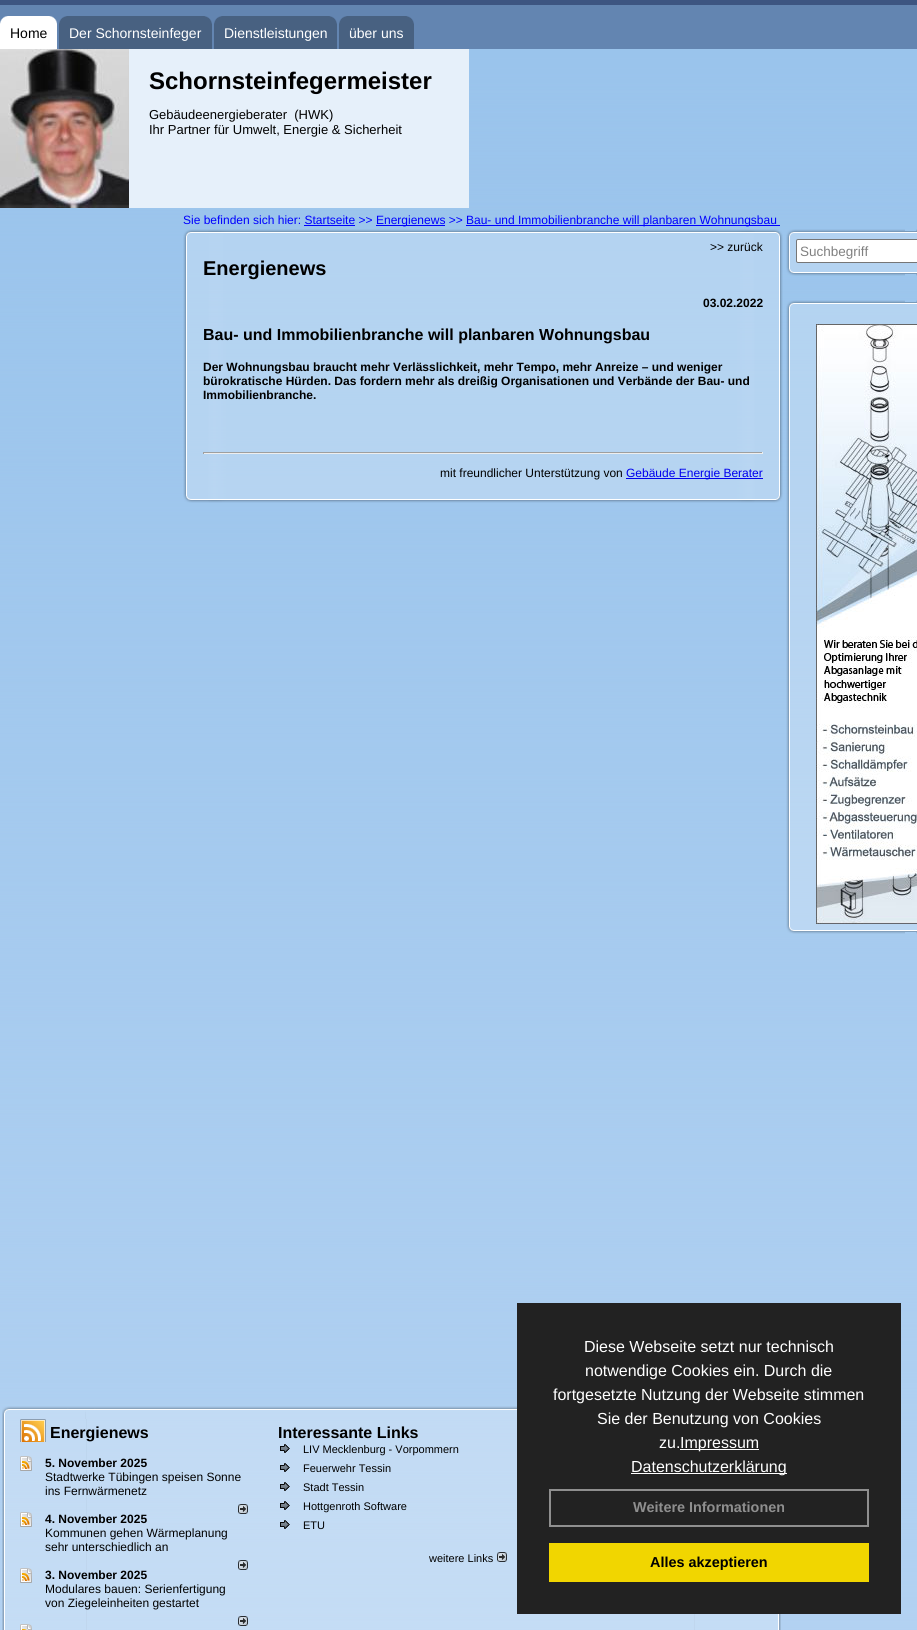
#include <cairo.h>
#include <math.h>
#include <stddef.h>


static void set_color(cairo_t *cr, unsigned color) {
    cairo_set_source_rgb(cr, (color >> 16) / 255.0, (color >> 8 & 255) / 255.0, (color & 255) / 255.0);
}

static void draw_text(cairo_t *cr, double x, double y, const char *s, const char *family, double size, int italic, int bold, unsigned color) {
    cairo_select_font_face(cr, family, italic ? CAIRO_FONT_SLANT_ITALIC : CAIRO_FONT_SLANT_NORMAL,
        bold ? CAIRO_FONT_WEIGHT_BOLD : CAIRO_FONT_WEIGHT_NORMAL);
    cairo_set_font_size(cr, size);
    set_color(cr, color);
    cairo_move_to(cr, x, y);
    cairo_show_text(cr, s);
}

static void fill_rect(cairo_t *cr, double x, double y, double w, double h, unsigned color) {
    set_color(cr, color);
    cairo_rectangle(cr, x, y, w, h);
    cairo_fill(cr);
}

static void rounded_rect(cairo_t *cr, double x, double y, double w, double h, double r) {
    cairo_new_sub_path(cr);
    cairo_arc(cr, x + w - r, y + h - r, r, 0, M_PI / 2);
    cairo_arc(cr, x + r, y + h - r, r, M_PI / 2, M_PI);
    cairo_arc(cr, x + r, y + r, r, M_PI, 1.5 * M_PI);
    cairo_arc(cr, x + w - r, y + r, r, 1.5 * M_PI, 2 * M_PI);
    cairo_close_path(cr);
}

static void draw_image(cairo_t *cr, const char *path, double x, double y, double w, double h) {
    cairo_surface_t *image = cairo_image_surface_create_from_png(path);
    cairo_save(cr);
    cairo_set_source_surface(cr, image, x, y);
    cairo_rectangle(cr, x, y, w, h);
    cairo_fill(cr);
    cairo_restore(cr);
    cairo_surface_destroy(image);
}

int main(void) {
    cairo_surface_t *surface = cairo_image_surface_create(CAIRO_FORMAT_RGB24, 917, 1630);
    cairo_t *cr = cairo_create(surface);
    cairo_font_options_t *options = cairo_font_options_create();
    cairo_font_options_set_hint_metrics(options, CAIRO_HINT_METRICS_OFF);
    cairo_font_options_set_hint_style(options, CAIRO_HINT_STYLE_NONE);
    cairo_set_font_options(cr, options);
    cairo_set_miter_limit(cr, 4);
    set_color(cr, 0xFFFFFF);
    cairo_paint(cr);
    draw_image(cr, "assets/img1.png", 0, 49, 917, 1581);
    draw_image(cr, "assets/img2.png", 0, 0, 917, 49);
    draw_image(cr, "assets/img3.png", 0, 16, 10, 33);
    fill_rect(cr, 10, 16, 37, 33, 0xFFFFFF);
    draw_text(cr, 10, 38, "Home", "Liberation Sans", 14, 0, 0, 0x000000);
    draw_image(cr, "assets/img4.png", 47, 16, 10, 33);
    draw_image(cr, "assets/img5.png", 59, 16, 10, 33);
    fill_rect(cr, 69, 16, 133, 33, 0x486181);
    draw_text(cr, 69, 38, "Der Schornsteinfeger", "Liberation Sans", 14, 0, 0, 0xFFFFFF);
    draw_image(cr, "assets/img6.png", 202, 16, 10, 33);
    draw_image(cr, "assets/img5.png", 214, 16, 10, 33);
    fill_rect(cr, 224, 16, 103, 33, 0x486181);
    draw_text(cr, 224, 38, "Dienstleistungen", "Liberation Sans", 14, 0, 0, 0xFFFFFF);
    draw_image(cr, "assets/img6.png", 327, 16, 10, 33);
    draw_image(cr, "assets/img5.png", 339, 16, 10, 33);
    fill_rect(cr, 349, 16, 55, 33, 0x486181);
    draw_text(cr, 349, 38, "über uns", "Liberation Sans", 14, 0, 0, 0xFFFFFF);
    draw_image(cr, "assets/img6.png", 404, 16, 10, 33);
    draw_image(cr, "assets/img7.png", 0, 49, 129, 159);
    fill_rect(cr, 129, 49, 340, 159, 0xE6F0FA);
    draw_text(cr, 149, 89, "Schornsteinfegermeister", "Liberation Sans", 24, 0, 1, 0x000000);
    draw_text(cr, 149, 119, "Gebäudeenergieberater  (HWK)", "Liberation Sans", 13, 0, 0, 0x000000);
    draw_text(cr, 149, 134, "Ihr Partner für Umwelt, Energie & Sicherheit", "Liberation Sans", 13, 0, 0, 0x000000);
    draw_text(cr, 183, 224, "Sie befinden sich hier: Startseite >>", "Liberation Sans", 12, 0, 0, 0x0000FF);
    fill_rect(cr, 376, 225, 69, 1, 0x0000FF);
    draw_text(cr, 376, 224, "Energienews >>", "Liberation Sans", 12, 0, 0, 0x0000FF);
    fill_rect(cr, 466, 225, 314, 1, 0x0000FF);
    draw_text(cr, 466, 224, "Bau- und Immobilienbranche will planbaren Wohnungsbau", "Liberation Sans", 12, 0, 0, 0x0000FF);
    fill_rect(cr, 304, 225, 51, 1, 0x0000FF);
    draw_image(cr, "assets/img8.png", 183, 229, 600, 10);
    draw_image(cr, "assets/img9.png", 183, 239, 600, 254);
    draw_text(cr, 710, 251, ">> zurück", "Liberation Sans", 12, 0, 0, 0x000000);
    draw_text(cr, 203, 275, "Energienews", "Liberation Sans", 20, 0, 1, 0x000000);
    draw_text(cr, 703, 307, "03.02.2022", "Liberation Sans", 12, 0, 1, 0x000000);
    draw_text(cr, 203, 340, "Bau- und Immobilienbranche will planbaren Wohnungsbau", "Liberation Sans", 16, 0, 1, 0x000000);
    draw_text(cr, 203, 371, "Der Wohnungsbau braucht mehr Verlässlichkeit, mehr Tempo, mehr Anreize – und weniger", "Liberation Sans", 12, 0, 1, 0x000000);
    draw_text(cr, 203, 385, "bürokratische Hürden. Das fordern mehr als dreißig Organisationen und Verbände der Bau- und", "Liberation Sans", 12, 0, 1, 0x000000);
    draw_text(cr, 203, 399, "Immobilienbranche.", "Liberation Sans", 12, 0, 1, 0x000000);
    fill_rect(cr, 203, 452, 560, 1, 0x9F9F9F);
    fill_rect(cr, 762, 452, 1, 2, 0xEEEEEE);
    fill_rect(cr, 203, 453, 560, 1, 0xEEEEEE);
    fill_rect(cr, 203, 452, 1, 2, 0x9F9F9F);
    draw_text(cr, 440, 477, "mit freundlicher Unterstützung von", "Liberation Sans", 12, 0, 0, 0x000000);
    fill_rect(cr, 626, 478, 137, 1, 0x0000EE);
    draw_text(cr, 626, 477, "Gebäude Energie Berater", "Liberation Sans", 12, 0, 0, 0x0000EE);
    draw_image(cr, "assets/img10.png", 183, 493, 600, 10);
    draw_image(cr, "assets/img11.png", 786, 229, 131, 10);
    draw_image(cr, "assets/img12.png", 786, 239, 131, 27);
    set_color(cr, 0xFFFFFF);
    rounded_rect(cr, 796.5, 239.5, 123, 23, 1.5);
    cairo_fill_preserve(cr);
    set_color(cr, 0x767676);
    cairo_set_line_width(cr, 1);
    cairo_stroke(cr);
    draw_text(cr, 800, 256, "Suchbegriff", "Liberation Sans", 13.5, 0, 0, 0x808080);
    draw_image(cr, "assets/img13.png", 786, 266, 131, 10);
    draw_image(cr, "assets/img14.png", 786, 300, 131, 10);
    draw_image(cr, "assets/img15.png", 786, 310, 131, 614);
    draw_image(cr, "assets/img16.png", 816, 324, 101, 600);
    draw_image(cr, "assets/img17.png", 786, 924, 131, 10);
    draw_image(cr, "assets/img18.png", 2, 1406, 515, 13);
    draw_image(cr, "assets/img19.png", 2, 1419, 779, 211);
    draw_image(cr, "assets/img20.png", 20, 1419, 26, 23);
    draw_text(cr, 50, 1438, "Energienews", "Liberation Sans", 16, 0, 1, 0x000000);
    draw_image(cr, "assets/img21.png", 20, 1456, 12, 15);
    draw_text(cr, 45, 1467, "5. November 2025", "Liberation Sans", 12, 0, 1, 0x000000);
    draw_text(cr, 45, 1481, "Stadtwerke Tübingen speisen Sonne", "Liberation Sans", 12, 0, 0, 0x000000);
    draw_text(cr, 45, 1495, "ins Fernwärmenetz", "Liberation Sans", 12, 0, 0, 0x000000);
    draw_image(cr, "assets/img22.png", 238, 1504, 10, 10);
    draw_image(cr, "assets/img23.png", 20, 1512, 12, 15);
    draw_text(cr, 45, 1523, "4. November 2025", "Liberation Sans", 12, 0, 1, 0x000000);
    draw_text(cr, 45, 1537, "Kommunen gehen Wärmeplanung", "Liberation Sans", 12, 0, 0, 0x000000);
    draw_text(cr, 45, 1551, "sehr unterschiedlich an", "Liberation Sans", 12, 0, 0, 0x000000);
    draw_image(cr, "assets/img24.png", 238, 1560, 10, 10);
    draw_image(cr, "assets/img25.png", 20, 1568, 12, 15);
    draw_text(cr, 45, 1579, "3. November 2025", "Liberation Sans", 12, 0, 1, 0x000000);
    draw_text(cr, 45, 1593, "Modulares bauen: Serienfertigung", "Liberation Sans", 12, 0, 0, 0x000000);
    draw_text(cr, 45, 1607, "von Ziegeleinheiten gestartet", "Liberation Sans", 12, 0, 0, 0x000000);
    draw_image(cr, "assets/img26.png", 238, 1616, 10, 10);
    draw_image(cr, "assets/img27.png", 20, 1624, 12, 6);
    draw_text(cr, 278, 1438, "Interessante Links", "Liberation Sans", 16, 0, 1, 0x000000);
    draw_image(cr, "assets/img28.png", 280, 1444, 10, 9);
    draw_text(cr, 303, 1453, "LIV Mecklenburg - Vorpommern", "Liberation Sans", 11, 0, 0, 0x000000);
    draw_image(cr, "assets/img29.png", 280, 1463, 10, 9);
    draw_text(cr, 303, 1472, "Feuerwehr Tessin", "Liberation Sans", 11, 0, 0, 0x000000);
    draw_image(cr, "assets/img30.png", 280, 1482, 10, 9);
    draw_text(cr, 303, 1491, "Stadt Tessin", "Liberation Sans", 11, 0, 0, 0x000000);
    draw_image(cr, "assets/img31.png", 280, 1501, 10, 9);
    draw_text(cr, 303, 1510, "Hottgenroth Software", "Liberation Sans", 11, 0, 0, 0x000000);
    draw_image(cr, "assets/img32.png", 280, 1520, 10, 9);
    draw_text(cr, 303, 1529, "ETU", "Liberation Sans", 11, 0, 0, 0x000000);
    draw_text(cr, 429, 1562, "weitere Links", "Liberation Sans", 11, 0, 0, 0x000000);
    draw_image(cr, "assets/img33.png", 497, 1552, 10, 10);
    fill_rect(cr, 517, 1303, 384, 311, 0x222222);
    draw_text(cr, 584, 1352, "Diese Webseite setzt nur technisch", "Liberation Sans", 16, 0, 0, 0xFFFFFF);
    draw_text(cr, 585, 1376, "notwendige Cookies ein. Durch die", "Liberation Sans", 16, 0, 0, 0xFFFFFF);
    draw_text(cr, 553, 1400, "fortgesetzte Nutzung der Webseite stimmen", "Liberation Sans", 16, 0, 0, 0xFFFFFF);
    draw_text(cr, 597, 1424, "Sie der Benutzung von Cookies", "Liberation Sans", 16, 0, 0, 0xFFFFFF);
    draw_text(cr, 659, 1448, "zu.", "Liberation Sans", 16, 0, 0, 0xFFFFFF);
    fill_rect(cr, 680, 1449, 79, 1, 0xFFFFFF);
    draw_text(cr, 680, 1448, "Impressum", "Liberation Sans", 16, 0, 0, 0xFFFFFF);
    fill_rect(cr, 631, 1473, 156, 1, 0xFFFFFF);
    draw_text(cr, 631, 1472, "Datenschutzerklärung", "Liberation Sans", 16, 0, 0, 0xFFFFFF);
    cairo_rectangle(cr, 550, 1490, 318, 36);
    set_color(cr, 0x8F8F8F);
    cairo_set_line_width(cr, 2);
    cairo_stroke(cr);
    draw_text(cr, 633, 1512, "Weitere Informationen", "Liberation Sans", 14.4, 0, 1, 0x8F8F8F);
    fill_rect(cr, 549, 1543, 320, 39, 0xF1D600);
    draw_text(cr, 650, 1567, "Alles akzeptieren", "Liberation Sans", 14.4, 0, 1, 0x000000);
    cairo_surface_write_to_png(surface, "output.png");
    cairo_font_options_destroy(options);
    cairo_destroy(cr);
    cairo_surface_destroy(surface);
    return 0;
}
